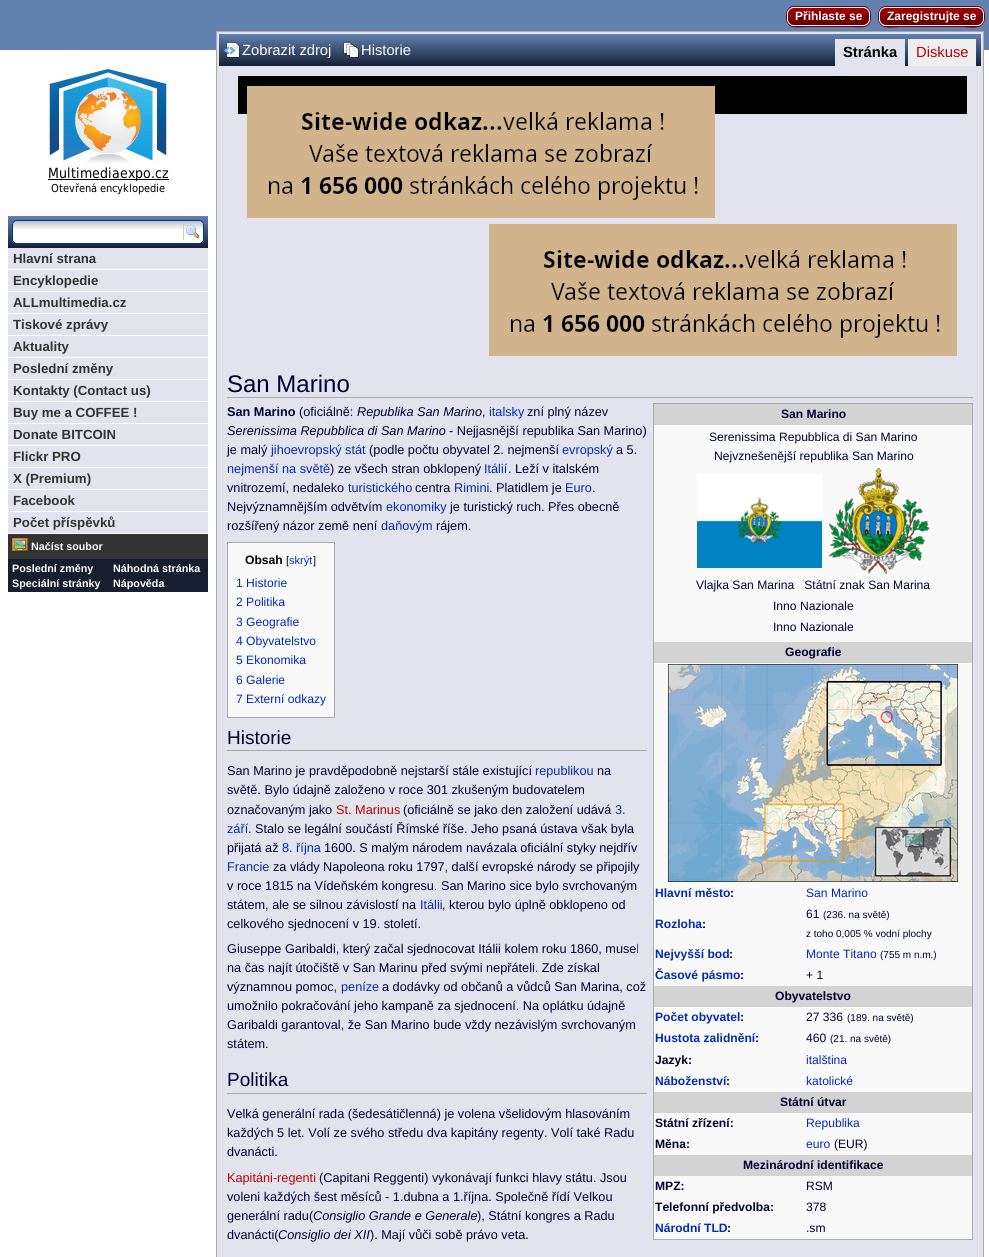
#include <cairo.h>
#include <math.h>
#include <stddef.h>


static void set_color(cairo_t *cr, unsigned color) {
    cairo_set_source_rgb(cr, (color >> 16) / 255.0, (color >> 8 & 255) / 255.0, (color & 255) / 255.0);
}

static void draw_text(cairo_t *cr, double x, double y, const char *s, const char *family, double size, int italic, int bold, unsigned color) {
    cairo_select_font_face(cr, family, italic ? CAIRO_FONT_SLANT_ITALIC : CAIRO_FONT_SLANT_NORMAL,
        bold ? CAIRO_FONT_WEIGHT_BOLD : CAIRO_FONT_WEIGHT_NORMAL);
    cairo_set_font_size(cr, size);
    set_color(cr, color);
    cairo_move_to(cr, x, y);
    cairo_show_text(cr, s);
}

static void fill_rect(cairo_t *cr, double x, double y, double w, double h, unsigned color) {
    set_color(cr, color);
    cairo_rectangle(cr, x, y, w, h);
    cairo_fill(cr);
}

static void rounded_rect(cairo_t *cr, double x, double y, double w, double h, double r) {
    cairo_new_sub_path(cr);
    cairo_arc(cr, x + w - r, y + h - r, r, 0, M_PI / 2);
    cairo_arc(cr, x + r, y + h - r, r, M_PI / 2, M_PI);
    cairo_arc(cr, x + r, y + r, r, M_PI, 1.5 * M_PI);
    cairo_arc(cr, x + w - r, y + r, r, 1.5 * M_PI, 2 * M_PI);
    cairo_close_path(cr);
}

static void draw_image(cairo_t *cr, const char *path, double x, double y, double w, double h) {
    cairo_surface_t *image = cairo_image_surface_create_from_png(path);
    cairo_save(cr);
    cairo_set_source_surface(cr, image, x, y);
    cairo_rectangle(cr, x, y, w, h);
    cairo_fill(cr);
    cairo_restore(cr);
    cairo_surface_destroy(image);
}

int main(void) {
    cairo_surface_t *surface = cairo_image_surface_create(CAIRO_FORMAT_RGB24, 989, 1257);
    cairo_t *cr = cairo_create(surface);
    cairo_font_options_t *options = cairo_font_options_create();
    cairo_font_options_set_hint_metrics(options, CAIRO_HINT_METRICS_OFF);
    cairo_font_options_set_hint_style(options, CAIRO_HINT_STYLE_NONE);
    cairo_set_font_options(cr, options);
    cairo_set_miter_limit(cr, 4);
    cairo_pattern_t *gradient;
    set_color(cr, 0xFFFFFF);
    cairo_paint(cr);
    fill_rect(cr, 0, 0, 989, 50, 0x6281AF);
    set_color(cr, 0x6A0000);
    cairo_new_path(cr);
    cairo_move_to(cr, 793, 7);
    cairo_curve_to(cr, 787, 7, 786, 12, 786, 16.5);
    cairo_curve_to(cr, 786, 22, 787.5, 26, 794, 26);
    cairo_curve_to(cr, 788, 26, 787, 21, 787, 16.5);
    cairo_curve_to(cr, 787, 12, 788, 7, 794, 7);
    cairo_close_path(cr);
    cairo_fill(cr);
    cairo_new_path(cr);
    cairo_move_to(cr, 863, 26);
    cairo_curve_to(cr, 869.5, 26, 871, 22, 871, 16.5);
    cairo_curve_to(cr, 871, 11, 869.5, 7, 863, 7);
    cairo_curve_to(cr, 869, 7, 870, 12, 870, 16.5);
    cairo_curve_to(cr, 870, 21, 869, 26, 863, 26);
    cairo_close_path(cr);
    cairo_fill(cr);
    cairo_new_path(cr);
    cairo_move_to(cr, 794, 6);
    cairo_curve_to(cr, 789, 6, 787, 10, 787, 14);
    cairo_curve_to(cr, 787, 10, 790, 7, 794, 7);
    cairo_line_to(cr, 863, 7);
    cairo_curve_to(cr, 867, 7, 870, 10, 870, 14);
    cairo_curve_to(cr, 870, 10, 868, 6, 863, 6);
    cairo_close_path(cr);
    cairo_fill(cr);
    cairo_new_path(cr);
    cairo_move_to(cr, 787, 19);
    cairo_curve_to(cr, 787, 30, 798, 27, 806, 27);
    cairo_line_to(cr, 852, 27);
    cairo_curve_to(cr, 859, 27, 870, 30, 870, 19);
    cairo_curve_to(cr, 870, 23, 867, 26, 863, 26);
    cairo_line_to(cr, 794, 26);
    cairo_curve_to(cr, 790, 26, 787, 23, 787, 19);
    cairo_close_path(cr);
    cairo_fill(cr);
    cairo_save(cr);
    rounded_rect(cr, 787, 7, 83, 19, 7);
    cairo_clip(cr);
    gradient = cairo_pattern_create_linear(788, 11, 788, 20);
    cairo_pattern_add_color_stop_rgba(gradient, 0, 0.616, 0, 0, 1);
    cairo_pattern_add_color_stop_rgba(gradient, 1, 0.439, 0, 0, 1);
    cairo_set_source(cr, gradient);
    cairo_pattern_destroy(gradient);
    cairo_rectangle(cr, 787, 8, 83, 17);
    cairo_fill(cr);
    cairo_restore(cr);
    rounded_rect(cr, 787.5, 7.5, 82, 18, 6.5);
    set_color(cr, 0xFFFFFF);
    cairo_set_line_width(cr, 1);
    cairo_stroke(cr);
    draw_text(cr, 795, 20, "Přihlaste se", "Liberation Sans", 12, 0, 1, 0xFFFFFF);
    set_color(cr, 0x6A0000);
    cairo_new_path(cr);
    cairo_move_to(cr, 885, 7);
    cairo_curve_to(cr, 879, 7, 878, 12, 878, 16.5);
    cairo_curve_to(cr, 878, 22, 879.5, 26, 886, 26);
    cairo_curve_to(cr, 880, 26, 879, 21, 879, 16.5);
    cairo_curve_to(cr, 879, 12, 880, 7, 886, 7);
    cairo_close_path(cr);
    cairo_fill(cr);
    cairo_new_path(cr);
    cairo_move_to(cr, 977, 26);
    cairo_curve_to(cr, 983.5, 26, 985, 22, 985, 16.5);
    cairo_curve_to(cr, 985, 11, 983.5, 7, 977, 7);
    cairo_curve_to(cr, 983, 7, 984, 12, 984, 16.5);
    cairo_curve_to(cr, 984, 21, 983, 26, 977, 26);
    cairo_close_path(cr);
    cairo_fill(cr);
    cairo_new_path(cr);
    cairo_move_to(cr, 886, 6);
    cairo_curve_to(cr, 881, 6, 879, 10, 879, 14);
    cairo_curve_to(cr, 879, 10, 882, 7, 886, 7);
    cairo_line_to(cr, 977, 7);
    cairo_curve_to(cr, 981, 7, 984, 10, 984, 14);
    cairo_curve_to(cr, 984, 10, 982, 6, 977, 6);
    cairo_close_path(cr);
    cairo_fill(cr);
    cairo_new_path(cr);
    cairo_move_to(cr, 879, 19);
    cairo_curve_to(cr, 879, 31, 894, 27, 901, 27);
    cairo_line_to(cr, 962, 27);
    cairo_curve_to(cr, 969, 27, 984, 31, 984, 19);
    cairo_curve_to(cr, 984, 23, 981, 26, 977, 26);
    cairo_line_to(cr, 886, 26);
    cairo_curve_to(cr, 882, 26, 879, 23, 879, 19);
    cairo_close_path(cr);
    cairo_fill(cr);
    cairo_save(cr);
    rounded_rect(cr, 879, 7, 105, 19, 7);
    cairo_clip(cr);
    gradient = cairo_pattern_create_linear(880, 11, 880, 20);
    cairo_pattern_add_color_stop_rgba(gradient, 0, 0.616, 0, 0, 1);
    cairo_pattern_add_color_stop_rgba(gradient, 1, 0.439, 0, 0, 1);
    cairo_set_source(cr, gradient);
    cairo_pattern_destroy(gradient);
    cairo_rectangle(cr, 879, 8, 105, 17);
    cairo_fill(cr);
    cairo_restore(cr);
    rounded_rect(cr, 879.5, 7.5, 104, 18, 6.5);
    set_color(cr, 0xFFFFFF);
    cairo_stroke(cr);
    draw_text(cr, 887, 20, "Zaregistrujte se", "Liberation Sans", 12, 0, 1, 0xFFFFFF);
    draw_image(cr, "assets/img1.png", 48, 69, 121, 126);
    gradient = cairo_pattern_create_linear(8, 216, 8, 248);
    cairo_pattern_add_color_stop_rgba(gradient, 0, 0.384, 0.506, 0.686, 1);
    cairo_pattern_add_color_stop_rgba(gradient, 1, 0.082, 0.125, 0.212, 1);
    cairo_set_source(cr, gradient);
    cairo_pattern_destroy(gradient);
    cairo_rectangle(cr, 8, 216, 200, 32);
    cairo_fill(cr);
    cairo_save(cr);
    rounded_rect(cr, 12, 220, 192, 24, 5);
    cairo_clip(cr);
    gradient = cairo_pattern_create_linear(13, 221, 13, 230);
    cairo_pattern_add_color_stop_rgba(gradient, 0, 0.749, 0.749, 0.749, 1);
    cairo_pattern_add_color_stop_rgba(gradient, 1, 1, 1, 1, 1);
    cairo_set_source(cr, gradient);
    cairo_pattern_destroy(gradient);
    cairo_rectangle(cr, 12, 221, 192, 22);
    cairo_fill(cr);
    cairo_restore(cr);
    rounded_rect(cr, 12.5, 220.5, 191, 23, 4.5);
    set_color(cr, 0x003399);
    cairo_stroke(cr);
    draw_image(cr, "assets/img2.png", 186, 225, 13, 14);
    fill_rect(cr, 183, 224, 1, 16, 0xCCCCCC);
    fill_rect(cr, 8, 248, 200, 21, 0xE3E3EE);
    draw_text(cr, 13, 263, "Hlavní strana", "Liberation Sans", 13.25, 0, 1, 0x333333);
    fill_rect(cr, 8, 270, 200, 21, 0xE3E3EE);
    draw_text(cr, 13, 285, "Encyklopedie", "Liberation Sans", 13.25, 0, 1, 0x333333);
    fill_rect(cr, 8, 292, 200, 21, 0xE3E3EE);
    draw_text(cr, 13, 307, "ALLmultimedia.cz", "Liberation Sans", 13.25, 0, 1, 0x333333);
    fill_rect(cr, 8, 314, 200, 21, 0xE3E3EE);
    draw_text(cr, 13, 329, "Tiskové zprávy", "Liberation Sans", 13.25, 0, 1, 0x333333);
    fill_rect(cr, 8, 336, 200, 21, 0xE3E3EE);
    draw_text(cr, 13, 351, "Aktuality", "Liberation Sans", 13.25, 0, 1, 0x333333);
    fill_rect(cr, 8, 358, 200, 21, 0xE3E3EE);
    draw_text(cr, 13, 373, "Poslední změny", "Liberation Sans", 13.25, 0, 1, 0x333333);
    fill_rect(cr, 8, 380, 200, 21, 0xE3E3EE);
    draw_text(cr, 13, 395, "Kontakty (Contact us)", "Liberation Sans", 13.25, 0, 1, 0x333333);
    fill_rect(cr, 8, 402, 200, 21, 0xE3E3EE);
    draw_text(cr, 13, 417, "Buy me a COFFEE !", "Liberation Sans", 13.25, 0, 1, 0x333333);
    fill_rect(cr, 8, 424, 200, 21, 0xE3E3EE);
    draw_text(cr, 13, 439, "Donate BITCOIN", "Liberation Sans", 13.25, 0, 1, 0x333333);
    fill_rect(cr, 8, 446, 200, 21, 0xE3E3EE);
    draw_text(cr, 13, 461, "Flickr PRO", "Liberation Sans", 13.25, 0, 1, 0x333333);
    fill_rect(cr, 8, 468, 200, 21, 0xE3E3EE);
    draw_text(cr, 13, 483, "X (Premium)", "Liberation Sans", 13.25, 0, 1, 0x333333);
    fill_rect(cr, 8, 490, 200, 21, 0xE3E3EE);
    draw_text(cr, 13, 505, "Facebook", "Liberation Sans", 13.25, 0, 1, 0x333333);
    fill_rect(cr, 8, 512, 200, 21, 0xE3E3EE);
    draw_text(cr, 13, 527, "Počet příspěvků", "Liberation Sans", 13.25, 0, 1, 0x333333);
    fill_rect(cr, 8, 534, 200, 25, 0x333333);
    draw_image(cr, "assets/img3.png", 12, 538, 16, 13);
    draw_text(cr, 31, 550, "Načíst soubor", "Liberation Sans", 10.75, 0, 1, 0xFFFFFF);
    fill_rect(cr, 8, 559, 200, 33, 0x161F30);
    draw_text(cr, 12, 572, "Poslední změny", "Liberation Sans", 10.75, 0, 1, 0xFFFFFF);
    draw_text(cr, 12, 587, "Speciální stránky", "Liberation Sans", 10.75, 0, 1, 0xFFFFFF);
    draw_text(cr, 113, 572, "Náhodná stránka", "Liberation Sans", 10.75, 0, 1, 0xFFFFFF);
    draw_text(cr, 113, 587, "Nápověda", "Liberation Sans", 10.75, 0, 1, 0xFFFFFF);
    set_color(cr, 0xE3E3EE);
    cairo_rectangle(cr, 216.5, 31.5, 767, 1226);
    cairo_fill_preserve(cr);
    set_color(cr, 0xAAAAAA);
    cairo_stroke(cr);
    gradient = cairo_pattern_create_linear(219, 34, 219, 66);
    cairo_pattern_add_color_stop_rgba(gradient, 0, 0.384, 0.506, 0.686, 1);
    cairo_pattern_add_color_stop_rgba(gradient, 1, 0.082, 0.125, 0.212, 1);
    cairo_set_source(cr, gradient);
    cairo_pattern_destroy(gradient);
    cairo_rectangle(cr, 219, 34, 762, 32);
    cairo_fill(cr);
    draw_image(cr, "assets/img4.png", 224, 42, 16, 16);
    draw_text(cr, 242, 55, "Zobrazit zdroj", "Liberation Sans", 14.75, 0, 0, 0xFFFFFF);
    draw_image(cr, "assets/img5.png", 343, 42, 16, 16);
    draw_text(cr, 361, 55, "Historie", "Liberation Sans", 14.75, 0, 0, 0xFFFFFF);
    fill_rect(cr, 835, 39, 70, 27, 0xE3E3EE);
    draw_text(cr, 843, 57, "Stránka", "Liberation Sans", 14.75, 0, 1, 0x000000);
    fill_rect(cr, 908, 39, 68, 27, 0xEEEEEE);
    draw_text(cr, 916, 57, "Diskuse", "Liberation Sans", 14.75, 0, 0, 0xBA0000);
    fill_rect(cr, 238, 76, 729, 38, 0x000000);
    draw_image(cr, "assets/img6.png", 247, 86, 468, 132);
    draw_image(cr, "assets/img6.png", 489, 224, 468, 132);
    fill_rect(cr, 227, 397, 746, 1, 0xAAAAAA);
    draw_text(cr, 227, 392, "San Marino", "Liberation Sans", 24, 0, 0, 0x000033);
    draw_text(cr, 227, 416, "San Marino", "Liberation Sans", 12.7, 0, 1, 0x000033);
    draw_text(cr, 299, 416, "(oficiálně:", "Liberation Sans", 12.7, 0, 0, 0x000033);
    draw_text(cr, 357, 416, "Republika San Marino", "Liberation Sans", 12.7, 1, 0, 0x000033);
    draw_text(cr, 482, 416, ",", "Liberation Sans", 12.7, 0, 0, 0x000033);
    draw_text(cr, 489, 416, "italsky", "Liberation Sans", 12.7, 0, 0, 0x002BB8);
    draw_text(cr, 527, 416, "zní plný název", "Liberation Sans", 12.7, 0, 0, 0x000033);
    draw_text(cr, 227, 435, "Serenissima Repubblica di San Marino", "Liberation Sans", 12.7, 1, 0, 0x000033);
    draw_text(cr, 449, 435, "- Nejjasnější republika San Marino)", "Liberation Sans", 12.7, 0, 0, 0x000033);
    draw_text(cr, 227, 454, "je malý", "Liberation Sans", 12.7, 0, 0, 0x000033);
    draw_text(cr, 271, 454, "jihoevropský stát", "Liberation Sans", 12.7, 0, 0, 0x002BB8);
    draw_text(cr, 369, 454, "(podle počtu obyvatel 2. nejmenší", "Liberation Sans", 12.7, 0, 0, 0x000033);
    draw_text(cr, 562, 454, "evropský", "Liberation Sans", 12.7, 0, 0, 0x002BB8);
    draw_text(cr, 616, 454, "a 5.", "Liberation Sans", 12.7, 0, 0, 0x000033);
    draw_text(cr, 227, 473, "nejmenší na světě", "Liberation Sans", 12.7, 0, 0, 0x002BB8);
    draw_text(cr, 330, 473, ") ze všech stran obklopený", "Liberation Sans", 12.7, 0, 0, 0x000033);
    draw_text(cr, 484, 473, "Itálií", "Liberation Sans", 12.7, 0, 0, 0x002BB8);
    draw_text(cr, 508, 473, ". Leží v italském", "Liberation Sans", 12.7, 0, 0, 0x000033);
    draw_text(cr, 227, 492, "vnitrozemí, nedaleko", "Liberation Sans", 12.7, 0, 0, 0x000033);
    draw_text(cr, 348, 492, "turistického", "Liberation Sans", 12.7, 0, 0, 0x002BB8);
    draw_text(cr, 415, 492, "centra", "Liberation Sans", 12.7, 0, 0, 0x000033);
    draw_text(cr, 454, 492, "Rimini", "Liberation Sans", 12.7, 0, 0, 0x002BB8);
    draw_text(cr, 489, 492, ". Platidlem je", "Liberation Sans", 12.7, 0, 0, 0x000033);
    draw_text(cr, 565, 492, "Euro", "Liberation Sans", 12.7, 0, 0, 0x002BB8);
    draw_text(cr, 592, 492, ".", "Liberation Sans", 12.7, 0, 0, 0x000033);
    draw_text(cr, 227, 511, "Nejvýznamnějším odvětvím", "Liberation Sans", 12.7, 0, 0, 0x000033);
    draw_text(cr, 386, 511, "ekonomiky", "Liberation Sans", 12.7, 0, 0, 0x002BB8);
    draw_text(cr, 450, 511, "je turistický ruch. Přes obecně", "Liberation Sans", 12.7, 0, 0, 0x000033);
    draw_text(cr, 227, 530, "rozšířený názor země není", "Liberation Sans", 12.7, 0, 0, 0x000033);
    draw_text(cr, 381, 530, "daňovým", "Liberation Sans", 12.7, 0, 0, 0x002BB8);
    draw_text(cr, 436, 530, "rájem.", "Liberation Sans", 12.7, 0, 0, 0x000033);
    fill_rect(cr, 654, 425, 318, 814, 0xF9F9F9);
    fill_rect(cr, 653, 403, 320, 1, 0xAAAAAA);
    fill_rect(cr, 972, 403, 1, 837, 0xAAAAAA);
    fill_rect(cr, 653, 1239, 320, 1, 0xAAAAAA);
    fill_rect(cr, 653, 403, 1, 837, 0xAAAAAA);
    fill_rect(cr, 654, 404, 318, 21, 0xD3D3D3);
    draw_text(cr, 781, 418, "San Marino", "Liberation Sans", 12.1, 0, 1, 0x000033);
    draw_text(cr, 709, 441, "Serenissima Repubblica di San Marino", "Liberation Sans", 12.1, 0, 0, 0x000033);
    draw_text(cr, 714, 460, "Nejvznešenější republika San Marino", "Liberation Sans", 12.1, 0, 0, 0x000033);
    draw_image(cr, "assets/img7.png", 697, 474, 125, 94);
    draw_image(cr, "assets/img8.png", 829, 468, 100, 106);
    draw_text(cr, 696, 589, "Vlajka San Marina   Státní znak San Marina", "Liberation Sans", 12.1, 0, 0, 0x000033);
    draw_text(cr, 773, 610, "Inno Nazionale", "Liberation Sans", 12.1, 0, 0, 0x000033);
    draw_text(cr, 773, 631, "Inno Nazionale", "Liberation Sans", 12.1, 0, 0, 0x000033);
    fill_rect(cr, 654, 642, 318, 21, 0xD3D3D3);
    draw_text(cr, 785, 656, "Geografie", "Liberation Sans", 12.1, 0, 1, 0x000033);
    draw_image(cr, "assets/img9.png", 668, 664, 290, 218);
    draw_text(cr, 655, 897, "Hlavní město", "Liberation Sans", 12.1, 0, 1, 0x002BB8);
    draw_text(cr, 730, 897, ":", "Liberation Sans", 12.1, 0, 1, 0x000033);
    draw_text(cr, 806, 897, "San Marino", "Liberation Sans", 12.1, 0, 0, 0x002BB8);
    draw_text(cr, 655, 928, "Rozloha", "Liberation Sans", 12.1, 0, 1, 0x002BB8);
    draw_text(cr, 702, 928, ":", "Liberation Sans", 12.1, 0, 1, 0x000033);
    draw_text(cr, 806, 918, "61", "Liberation Sans", 12.1, 0, 0, 0x000033);
    draw_text(cr, 823, 918, "(236. na světě)", "Liberation Sans", 10, 0, 0, 0x000033);
    draw_text(cr, 806, 937, "z toho 0,005 % vodní plochy", "Liberation Sans", 10, 0, 0, 0x000033);
    draw_text(cr, 655, 958, "Nejvyšší bod", "Liberation Sans", 12.1, 0, 1, 0x002BB8);
    draw_text(cr, 729, 958, ":", "Liberation Sans", 12.1, 0, 1, 0x000033);
    draw_text(cr, 806, 958, "Monte Titano", "Liberation Sans", 12.1, 0, 0, 0x002BB8);
    draw_text(cr, 880, 958, "(755 m n.m.)", "Liberation Sans", 10, 0, 0, 0x000033);
    draw_text(cr, 655, 979, "Časové pásmo", "Liberation Sans", 12.1, 0, 1, 0x002BB8);
    draw_text(cr, 740, 979, ":", "Liberation Sans", 12.1, 0, 1, 0x000033);
    draw_text(cr, 806, 979, "+ 1", "Liberation Sans", 12.1, 0, 0, 0x000033);
    fill_rect(cr, 654, 986, 318, 21, 0xD3D3D3);
    draw_text(cr, 775, 1000, "Obyvatelstvo", "Liberation Sans", 12.1, 0, 1, 0x000033);
    draw_text(cr, 655, 1021, "Počet obyvatel", "Liberation Sans", 12.1, 0, 1, 0x002BB8);
    draw_text(cr, 740, 1021, ":", "Liberation Sans", 12.1, 0, 1, 0x000033);
    draw_text(cr, 806, 1021, "27 336", "Liberation Sans", 12.1, 0, 0, 0x000033);
    draw_text(cr, 847, 1021, "(189. na světě)", "Liberation Sans", 10, 0, 0, 0x000033);
    draw_text(cr, 655, 1042, "Hustota zalidnění", "Liberation Sans", 12.1, 0, 1, 0x002BB8);
    draw_text(cr, 755, 1042, ":", "Liberation Sans", 12.1, 0, 1, 0x000033);
    draw_text(cr, 806, 1042, "460", "Liberation Sans", 12.1, 0, 0, 0x000033);
    draw_text(cr, 830, 1042, "(21. na světě)", "Liberation Sans", 10, 0, 0, 0x000033);
    draw_text(cr, 655, 1064, "Jazyk:", "Liberation Sans", 12.1, 0, 1, 0x000033);
    draw_text(cr, 806, 1064, "italština", "Liberation Sans", 12.1, 0, 0, 0x002BB8);
    draw_text(cr, 655, 1085, "Náboženství", "Liberation Sans", 12.1, 0, 1, 0x002BB8);
    draw_text(cr, 726, 1085, ":", "Liberation Sans", 12.1, 0, 1, 0x000033);
    draw_text(cr, 806, 1085, "katolické", "Liberation Sans", 12.1, 0, 0, 0x002BB8);
    fill_rect(cr, 654, 1092, 318, 21, 0xD3D3D3);
    draw_text(cr, 780, 1106, "Státní útvar", "Liberation Sans", 12.1, 0, 1, 0x000033);
    draw_text(cr, 655, 1127, "Státní zřízení:", "Liberation Sans", 12.1, 0, 1, 0x000033);
    draw_text(cr, 806, 1127, "Republika", "Liberation Sans", 12.1, 0, 0, 0x002BB8);
    draw_text(cr, 655, 1148, "Měna:", "Liberation Sans", 12.1, 0, 1, 0x000033);
    draw_text(cr, 806, 1148, "euro", "Liberation Sans", 12.1, 0, 0, 0x002BB8);
    draw_text(cr, 834, 1148, "(EUR)", "Liberation Sans", 12.1, 0, 0, 0x000033);
    fill_rect(cr, 654, 1155, 318, 21, 0xD3D3D3);
    draw_text(cr, 743, 1169, "Mezinárodní identifikace", "Liberation Sans", 12.1, 0, 1, 0x000033);
    draw_text(cr, 655, 1190, "MPZ:", "Liberation Sans", 12.1, 0, 1, 0x000033);
    draw_text(cr, 806, 1190, "RSM", "Liberation Sans", 12.1, 0, 0, 0x000033);
    draw_text(cr, 655, 1211, "Telefonní předvolba:", "Liberation Sans", 12.1, 0, 1, 0x000033);
    draw_text(cr, 806, 1211, "378", "Liberation Sans", 12.1, 0, 0, 0x000033);
    draw_text(cr, 655, 1232, "Národní TLD", "Liberation Sans", 12.1, 0, 1, 0x002BB8);
    draw_text(cr, 727, 1232, ":", "Liberation Sans", 12.1, 0, 1, 0x000033);
    draw_text(cr, 806, 1232, ".sm", "Liberation Sans", 12.1, 0, 0, 0x000033);
    set_color(cr, 0xF9F9F9);
    cairo_rectangle(cr, 227.5, 542.5, 107, 175);
    cairo_fill_preserve(cr);
    set_color(cr, 0xAAAAAA);
    cairo_stroke(cr);
    draw_text(cr, 245, 564, "Obsah", "Liberation Sans", 12.1, 0, 1, 0x000000);
    draw_text(cr, 286, 564, "[", "Liberation Sans", 11, 0, 0, 0x000000);
    draw_text(cr, 289, 564, "skrýt", "Liberation Sans", 11, 0, 0, 0x002BB8);
    draw_text(cr, 313, 564, "]", "Liberation Sans", 11, 0, 0, 0x000000);
    draw_text(cr, 236, 587, "1 Historie", "Liberation Sans", 12.1, 0, 0, 0x002BB8);
    draw_text(cr, 236, 606, "2 Politika", "Liberation Sans", 12.1, 0, 0, 0x002BB8);
    draw_text(cr, 236, 626, "3 Geografie", "Liberation Sans", 12.1, 0, 0, 0x002BB8);
    draw_text(cr, 236, 645, "4 Obyvatelstvo", "Liberation Sans", 12.1, 0, 0, 0x002BB8);
    draw_text(cr, 236, 664, "5 Ekonomika", "Liberation Sans", 12.1, 0, 0, 0x002BB8);
    draw_text(cr, 236, 684, "6 Galerie", "Liberation Sans", 12.1, 0, 0, 0x002BB8);
    draw_text(cr, 236, 703, "7 Externí odkazy", "Liberation Sans", 12.1, 0, 0, 0x002BB8);
    fill_rect(cr, 227, 750, 420, 1, 0xAAAAAA);
    draw_text(cr, 227, 744, "Historie", "Liberation Sans", 19, 0, 0, 0x000033);
    draw_text(cr, 227, 775, "San Marino je pravděpodobně nejstarší stále existující", "Liberation Sans", 12.7, 0, 0, 0x000033);
    draw_text(cr, 535, 775, "republikou", "Liberation Sans", 12.7, 0, 0, 0x002BB8);
    draw_text(cr, 597, 775, "na", "Liberation Sans", 12.7, 0, 0, 0x000033);
    draw_text(cr, 227, 794, "světě. Bylo údajně založeno v roce 301 zkušeným budovatelem", "Liberation Sans", 12.7, 0, 0, 0x000033);
    draw_text(cr, 227, 814, "označovaným jako", "Liberation Sans", 12.7, 0, 0, 0x000033);
    draw_text(cr, 336, 814, "St. Marinus", "Liberation Sans", 12.7, 0, 0, 0xBA0000);
    draw_text(cr, 403, 814, "(oficiálně se jako den založení udává", "Liberation Sans", 12.7, 0, 0, 0x000033);
    draw_text(cr, 615, 814, "3.", "Liberation Sans", 12.7, 0, 0, 0x002BB8);
    draw_text(cr, 227, 833, "září", "Liberation Sans", 12.7, 0, 0, 0x002BB8);
    draw_text(cr, 248, 833, ". Stalo se legální součástí Římské říše. Jeho psaná ústava však byla", "Liberation Sans", 12.7, 0, 0, 0x000033);
    draw_text(cr, 227, 852, "přijatá až", "Liberation Sans", 12.7, 0, 0, 0x000033);
    draw_text(cr, 282, 852, "8. října", "Liberation Sans", 12.7, 0, 0, 0x002BB8);
    draw_text(cr, 324, 852, "1600. S malým národem navázala oficiální styky nejdřív", "Liberation Sans", 12.7, 0, 0, 0x000033);
    draw_text(cr, 227, 871, "Francie", "Liberation Sans", 12.7, 0, 0, 0x002BB8);
    draw_text(cr, 273, 871, "za vlády Napoleona roku 1797, další evropské národy se připojily", "Liberation Sans", 12.7, 0, 0, 0x000033);
    draw_text(cr, 227, 890, "v roce 1815 na Vídeňském kongresu. San Marino sice bylo svrchovaným", "Liberation Sans", 12.7, 0, 0, 0x000033);
    draw_text(cr, 227, 909, "státem, ale se silnou závislostí na", "Liberation Sans", 12.7, 0, 0, 0x000033);
    draw_text(cr, 420, 909, "Itálii", "Liberation Sans", 12.7, 0, 0, 0x002BB8);
    draw_text(cr, 442, 909, ", kterou bylo úplně obklopeno od", "Liberation Sans", 12.7, 0, 0, 0x000033);
    draw_text(cr, 227, 928, "celkového sjednocení v 19. století.", "Liberation Sans", 12.7, 0, 0, 0x000033);
    draw_text(cr, 227, 953, "Giuseppe Garibaldi, který začal sjednocovat Itálii kolem roku 1860, musel", "Liberation Sans", 12.7, 0, 0, 0x000033);
    draw_text(cr, 227, 972, "na čas najít útočiště v San Marinu před svými nepřáteli. Zde získal", "Liberation Sans", 12.7, 0, 0, 0x000033);
    draw_text(cr, 227, 991, "významnou pomoc,", "Liberation Sans", 12.7, 0, 0, 0x000033);
    draw_text(cr, 341, 991, "peníze", "Liberation Sans", 12.7, 0, 0, 0x002BB8);
    draw_text(cr, 382, 991, "a dodávky od občanů a vůdců San Marina, což", "Liberation Sans", 12.7, 0, 0, 0x000033);
    draw_text(cr, 227, 1010, "umožnilo pokračování jeho kampaně za sjednocení. Na oplátku údajně", "Liberation Sans", 12.7, 0, 0, 0x000033);
    draw_text(cr, 227, 1029, "Garibaldi garantoval, že San Marino bude vždy nezávislým svrchovaným", "Liberation Sans", 12.7, 0, 0, 0x000033);
    draw_text(cr, 227, 1048, "státem.", "Liberation Sans", 12.7, 0, 0, 0x000033);
    fill_rect(cr, 227, 1093, 420, 1, 0xAAAAAA);
    draw_text(cr, 227, 1086, "Politika", "Liberation Sans", 19, 0, 0, 0x000033);
    draw_text(cr, 227, 1118, "Velká generální rada (šedesátičlenná) je volena všelidovým hlasováním", "Liberation Sans", 12.7, 0, 0, 0x000033);
    draw_text(cr, 227, 1137, "každých 5 let. Volí ze svého středu dva kapitány regenty. Volí také Radu", "Liberation Sans", 12.7, 0, 0, 0x000033);
    draw_text(cr, 227, 1156, "dvanácti.", "Liberation Sans", 12.7, 0, 0, 0x000033);
    draw_text(cr, 227, 1182, "Kapitáni-regenti", "Liberation Sans", 12.7, 0, 0, 0xBA0000);
    draw_text(cr, 319, 1182, "(Capitani Reggenti) vykonávají funkci hlavy státu. Jsou", "Liberation Sans", 12.7, 0, 0, 0x000033);
    draw_text(cr, 227, 1201, "voleni každých šest měsíců - 1.dubna a 1.října. Společně řídí Velkou", "Liberation Sans", 12.7, 0, 0, 0x000033);
    draw_text(cr, 227, 1220, "generální radu(", "Liberation Sans", 12.7, 0, 0, 0x000033);
    draw_text(cr, 313, 1220, "Consiglio Grande e Generale", "Liberation Sans", 12.7, 1, 0, 0x000033);
    draw_text(cr, 477, 1220, "), Státní kongres a Radu", "Liberation Sans", 12.7, 0, 0, 0x000033);
    draw_text(cr, 227, 1239, "dvanácti(", "Liberation Sans", 12.7, 0, 0, 0x000033);
    draw_text(cr, 278, 1239, "Consiglio dei XII", "Liberation Sans", 12.7, 1, 0, 0x000033);
    draw_text(cr, 370, 1239, "). Mají vůči sobě právo veta.", "Liberation Sans", 12.7, 0, 0, 0x000033);
    cairo_surface_write_to_png(surface, "output.png");
    cairo_font_options_destroy(options);
    cairo_destroy(cr);
    cairo_surface_destroy(surface);
    return 0;
}
